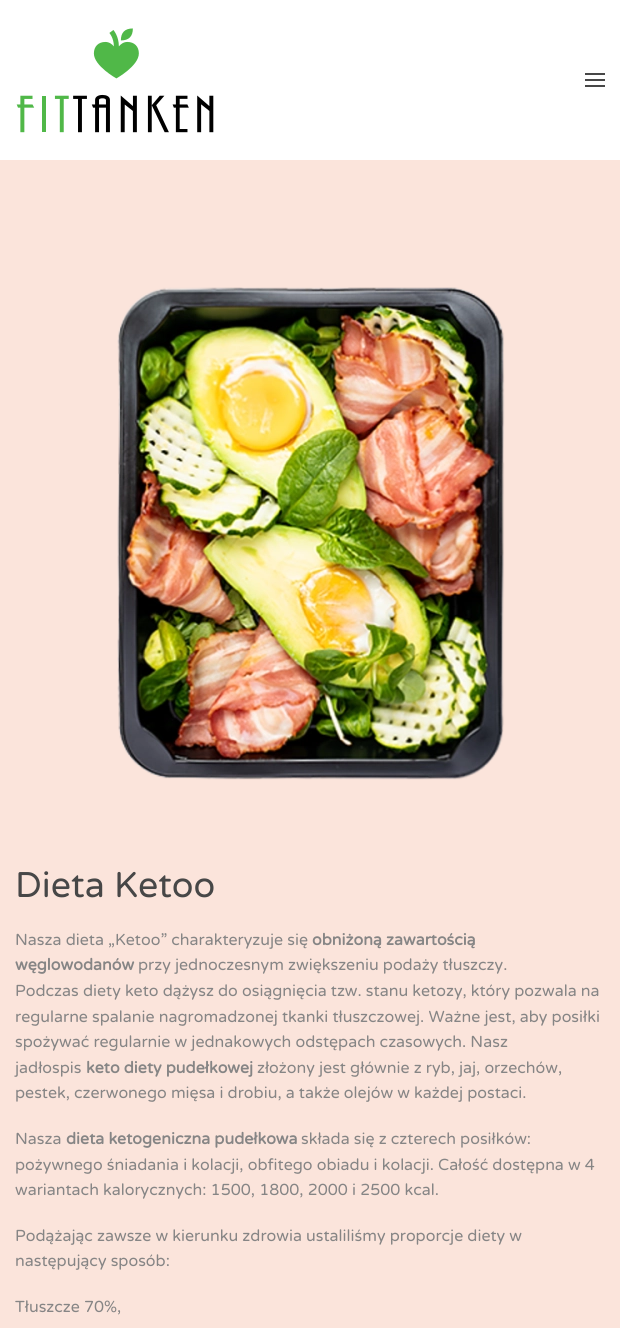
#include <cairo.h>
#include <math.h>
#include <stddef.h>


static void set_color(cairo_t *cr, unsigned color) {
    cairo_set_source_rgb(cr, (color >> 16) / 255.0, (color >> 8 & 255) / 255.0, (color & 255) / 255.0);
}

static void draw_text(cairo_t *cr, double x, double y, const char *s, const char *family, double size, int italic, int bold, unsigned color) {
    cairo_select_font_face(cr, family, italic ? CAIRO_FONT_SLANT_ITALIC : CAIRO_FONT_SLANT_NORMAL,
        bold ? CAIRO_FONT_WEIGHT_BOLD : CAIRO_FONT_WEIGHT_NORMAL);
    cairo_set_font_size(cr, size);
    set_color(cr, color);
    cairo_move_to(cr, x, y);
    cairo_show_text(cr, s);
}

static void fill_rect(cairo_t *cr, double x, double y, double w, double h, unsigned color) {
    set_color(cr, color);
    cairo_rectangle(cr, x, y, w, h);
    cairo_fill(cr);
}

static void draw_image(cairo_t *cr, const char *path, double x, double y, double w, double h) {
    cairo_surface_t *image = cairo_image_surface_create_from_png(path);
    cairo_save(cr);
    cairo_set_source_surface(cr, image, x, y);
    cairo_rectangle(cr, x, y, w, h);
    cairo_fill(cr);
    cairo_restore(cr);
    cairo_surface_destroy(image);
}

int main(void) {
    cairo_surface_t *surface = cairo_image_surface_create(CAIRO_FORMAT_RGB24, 620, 1328);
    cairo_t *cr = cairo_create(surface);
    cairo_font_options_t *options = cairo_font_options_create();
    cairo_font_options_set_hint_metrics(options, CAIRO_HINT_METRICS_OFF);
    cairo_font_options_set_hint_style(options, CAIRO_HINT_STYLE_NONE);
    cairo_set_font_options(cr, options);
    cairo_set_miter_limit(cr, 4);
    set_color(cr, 0xFFFFFF);
    cairo_paint(cr);
    draw_image(cr, "assets/img1.png", 16, 28, 198, 105);
    fill_rect(cr, 585, 73, 20, 2, 0x474747);
    fill_rect(cr, 585, 79, 20, 2, 0x474747);
    fill_rect(cr, 585, 85, 20, 2, 0x474747);
    fill_rect(cr, 0, 160, 620, 1168, 0xFBE4DB);
    draw_image(cr, "assets/img2.png", 117, 287, 388, 493);
    draw_text(cr, 15, 897, "Dieta Ketoo", "Varela Round", 35.75, 0, 0, 0x474747);
    draw_text(cr, 15, 945, "Nasza dieta „Ketoo” charakteryzuje się", "Varela Round", 16, 0, 0, 0x868585);
    draw_text(cr, 312, 945, "obniżoną zawartością", "Varela Round", 16, 0, 1, 0x868585);
    draw_text(cr, 15, 970, "węglowodanów", "Varela Round", 16, 0, 1, 0x868585);
    draw_text(cr, 138, 970, "przy jednoczesnym zwiększeniu podaży tłuszczy.", "Varela Round", 16, 0, 0, 0x868585);
    draw_text(cr, 15, 996, "Podczas diety keto dążysz do osiągnięcia tzw. stanu ketozy, który pozwala na", "Varela Round", 16, 0, 0, 0x868585);
    draw_text(cr, 15, 1022, "regularne spalanie nagromadzonej tkanki tłuszczowej. Ważne jest, aby posiłki", "Varela Round", 16, 0, 0, 0x868585);
    draw_text(cr, 15, 1047, "spożywać regularnie w jednakowych odstępach czasowych. Nasz", "Varela Round", 16, 0, 0, 0x868585);
    draw_text(cr, 15, 1073, "jadłospis", "Varela Round", 16, 0, 0, 0x868585);
    draw_text(cr, 86, 1073, "keto diety pudełkowej", "Varela Round", 16, 0, 1, 0x868585);
    draw_text(cr, 257, 1073, "złożony jest głównie z ryb, jaj, orzechów,", "Varela Round", 16, 0, 0, 0x868585);
    draw_text(cr, 15, 1098, "pestek, czerwonego mięsa i drobiu, a także olejów w każdej postaci.", "Varela Round", 16, 0, 0, 0x868585);
    draw_text(cr, 15, 1144, "Nasza", "Varela Round", 16, 0, 0, 0x868585);
    draw_text(cr, 66, 1144, "dieta ketogeniczna pudełkowa", "Varela Round", 16, 0, 1, 0x868585);
    draw_text(cr, 301, 1144, "składa się z czterech posiłków:", "Varela Round", 16, 0, 0, 0x868585);
    draw_text(cr, 15, 1170, "pożywnego śniadania i kolacji, obfitego obiadu i kolacji. Całość dostępna w 4", "Varela Round", 16, 0, 0, 0x868585);
    draw_text(cr, 15, 1195, "wariantach kalorycznych: 1500, 1800, 2000 i 2500 kcal.", "Varela Round", 16, 0, 0, 0x868585);
    draw_text(cr, 15, 1241, "Podążając zawsze w kierunku zdrowia ustaliliśmy proporcje diety w", "Varela Round", 16, 0, 0, 0x868585);
    draw_text(cr, 15, 1266, "następujący sposób:", "Varela Round", 16, 0, 0, 0x868585);
    draw_text(cr, 15, 1312, "Tłuszcze 70%,", "Varela Round", 16, 0, 0, 0x868585);
    cairo_surface_write_to_png(surface, "output.png");
    cairo_font_options_destroy(options);
    cairo_destroy(cr);
    cairo_surface_destroy(surface);
    return 0;
}
